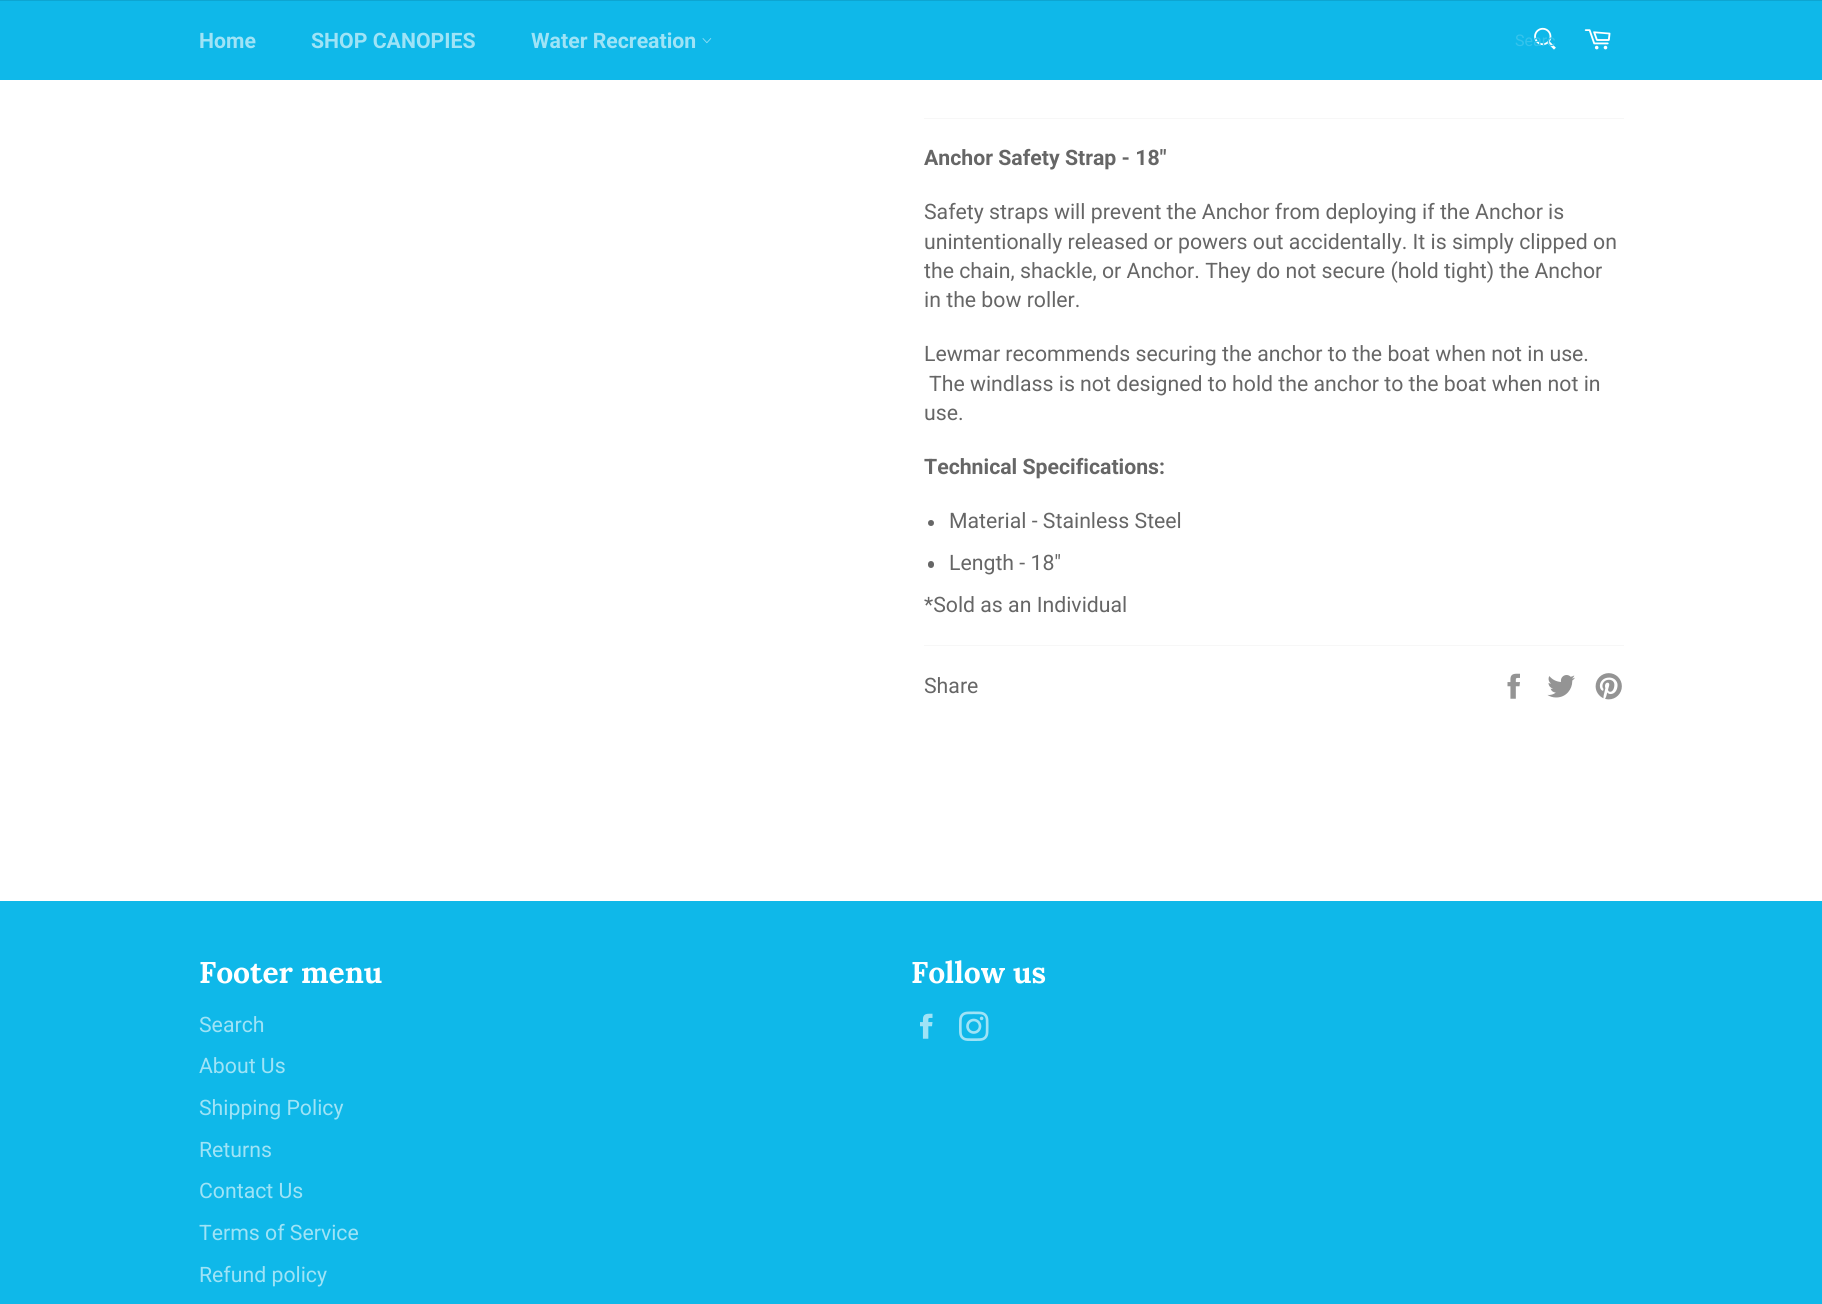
#include <cairo.h>
#include <math.h>
#include <stddef.h>


static void set_color(cairo_t *cr, unsigned color) {
    cairo_set_source_rgb(cr, (color >> 16) / 255.0, (color >> 8 & 255) / 255.0, (color & 255) / 255.0);
}

static void draw_text(cairo_t *cr, double x, double y, const char *s, const char *family, double size, int italic, int bold, unsigned color) {
    cairo_select_font_face(cr, family, italic ? CAIRO_FONT_SLANT_ITALIC : CAIRO_FONT_SLANT_NORMAL,
        bold ? CAIRO_FONT_WEIGHT_BOLD : CAIRO_FONT_WEIGHT_NORMAL);
    cairo_set_font_size(cr, size);
    set_color(cr, color);
    cairo_move_to(cr, x, y);
    cairo_show_text(cr, s);
}

static void fill_rect(cairo_t *cr, double x, double y, double w, double h, unsigned color) {
    set_color(cr, color);
    cairo_rectangle(cr, x, y, w, h);
    cairo_fill(cr);
}

static void rounded_rect(cairo_t *cr, double x, double y, double w, double h, double r) {
    cairo_new_sub_path(cr);
    cairo_arc(cr, x + w - r, y + h - r, r, 0, M_PI / 2);
    cairo_arc(cr, x + r, y + h - r, r, M_PI / 2, M_PI);
    cairo_arc(cr, x + r, y + r, r, M_PI, 1.5 * M_PI);
    cairo_arc(cr, x + w - r, y + r, r, 1.5 * M_PI, 2 * M_PI);
    cairo_close_path(cr);
}

static void draw_image(cairo_t *cr, const char *path, double x, double y, double w, double h) {
    cairo_surface_t *image = cairo_image_surface_create_from_png(path);
    cairo_save(cr);
    cairo_set_source_surface(cr, image, x, y);
    cairo_rectangle(cr, x, y, w, h);
    cairo_fill(cr);
    cairo_restore(cr);
    cairo_surface_destroy(image);
}

int main(void) {
    cairo_surface_t *surface = cairo_image_surface_create(CAIRO_FORMAT_RGB24, 1822, 1304);
    cairo_t *cr = cairo_create(surface);
    cairo_font_options_t *options = cairo_font_options_create();
    cairo_font_options_set_hint_metrics(options, CAIRO_HINT_METRICS_OFF);
    cairo_font_options_set_hint_style(options, CAIRO_HINT_STYLE_NONE);
    cairo_set_font_options(cr, options);
    cairo_set_miter_limit(cr, 4);
    set_color(cr, 0xFFFFFF);
    cairo_paint(cr);
    fill_rect(cr, 0, 1, 1822, 79, 0x0FB8E9);
    fill_rect(cr, 0, 0, 1822, 1, 0x0DA5D1);
    draw_text(cr, 199, 48, "Home", "Roboto", 21.25, 0, 1, 0x9FE3F6);
    draw_text(cr, 311, 48, "SHOP CANOPIES", "Roboto", 21.25, 0, 1, 0x9FE3F6);
    draw_text(cr, 531, 48, "Water Recreation", "Roboto", 21.25, 0, 1, 0x9FE3F6);
    draw_image(cr, "assets/img1.png", 702, 38, 10, 6);
    draw_image(cr, "assets/img2.png", 1534, 27, 22, 23);
    cairo_save(cr);
    cairo_rectangle(cr, 1515, 31, 40, 19);
    cairo_clip(cr);
    draw_text(cr, 1515, 46, "Searc", "Roboto", 16, 0, 0, 0x35C3EC);
    cairo_restore(cr);
    draw_image(cr, "assets/img3.png", 1584, 29, 27, 21);
    fill_rect(cr, 924, 118, 700, 1, 0xF7F7F7);
    draw_text(cr, 924, 165, "Anchor Safety Strap - 18\"", "Roboto", 21.25, 0, 1, 0x666666);
    draw_text(cr, 924, 219, "Safety straps will prevent the Anchor from deploying if the Anchor is", "Roboto", 21.25, 0, 0, 0x666666);
    draw_text(cr, 924, 249, "unintentionally released or powers out accidentally. It is simply clipped on", "Roboto", 21.25, 0, 0, 0x666666);
    draw_text(cr, 924, 278, "the chain, shackle, or Anchor. They do not secure (hold tight) the Anchor", "Roboto", 21.25, 0, 0, 0x666666);
    draw_text(cr, 924, 307, "in the bow roller.", "Roboto", 21.25, 0, 0, 0x666666);
    draw_text(cr, 924, 361, "Lewmar recommends securing the anchor to the boat when not in use.", "Roboto", 21.25, 0, 0, 0x666666);
    draw_text(cr, 929, 391, "The windlass is not designed to hold the anchor to the boat when not in", "Roboto", 21.25, 0, 0, 0x666666);
    draw_text(cr, 924, 420, "use.", "Roboto", 21.25, 0, 0, 0x666666);
    draw_text(cr, 924, 474, "Technical Specifications:", "Roboto", 21.25, 0, 1, 0x666666);
    cairo_new_path(cr);
    cairo_arc(cr, 931, 523, 3, 0, 2 * M_PI);
    cairo_fill(cr);
    draw_text(cr, 949, 528, "Material - Stainless Steel", "Roboto", 21.25, 0, 0, 0x666666);
    rounded_rect(cr, 928, 561, 6, 7, 3);
    cairo_fill(cr);
    draw_text(cr, 949, 570, "Length - 18\"", "Roboto", 21.25, 0, 0, 0x666666);
    draw_text(cr, 924, 612, "*Sold as an Individual", "Roboto", 21.25, 0, 0, 0x666666);
    fill_rect(cr, 924, 645, 700, 1, 0xF7F7F7);
    draw_text(cr, 924, 693, "Share", "Roboto", 21.25, 0, 0, 0x666666);
    draw_image(cr, "assets/img4.png", 1507, 673, 13, 26);
    draw_image(cr, "assets/img5.png", 1547, 675, 28, 23);
    draw_image(cr, "assets/img6.png", 1595, 673, 27, 27);
    fill_rect(cr, 0, 901, 1822, 403, 0x0FB8E9);
    draw_text(cr, 199, 983, "Footer menu", "Lora", 30, 0, 1, 0xFFFFFF);
    draw_text(cr, 199, 1032, "Search", "Roboto", 21.25, 0, 0, 0x9FE3F6);
    draw_text(cr, 199, 1073, "About Us", "Roboto", 21.25, 0, 0, 0x9FE3F6);
    draw_text(cr, 199, 1115, "Shipping Policy", "Roboto", 21.25, 0, 0, 0x9FE3F6);
    draw_text(cr, 199, 1157, "Returns", "Roboto", 21.25, 0, 0, 0x9FE3F6);
    draw_text(cr, 199, 1198, "Contact Us", "Roboto", 21.25, 0, 0, 0x9FE3F6);
    draw_text(cr, 199, 1240, "Terms of Service", "Roboto", 21.25, 0, 0, 0x9FE3F6);
    draw_text(cr, 199, 1282, "Refund policy", "Roboto", 21.25, 0, 0, 0x9FE3F6);
    draw_text(cr, 911, 983, "Follow us", "Lora", 30, 0, 1, 0xFFFFFF);
    draw_image(cr, "assets/img7.png", 920, 1013, 13, 26);
    draw_image(cr, "assets/img8.png", 959, 1011, 30, 30);
    cairo_surface_write_to_png(surface, "output.png");
    cairo_font_options_destroy(options);
    cairo_destroy(cr);
    cairo_surface_destroy(surface);
    return 0;
}
